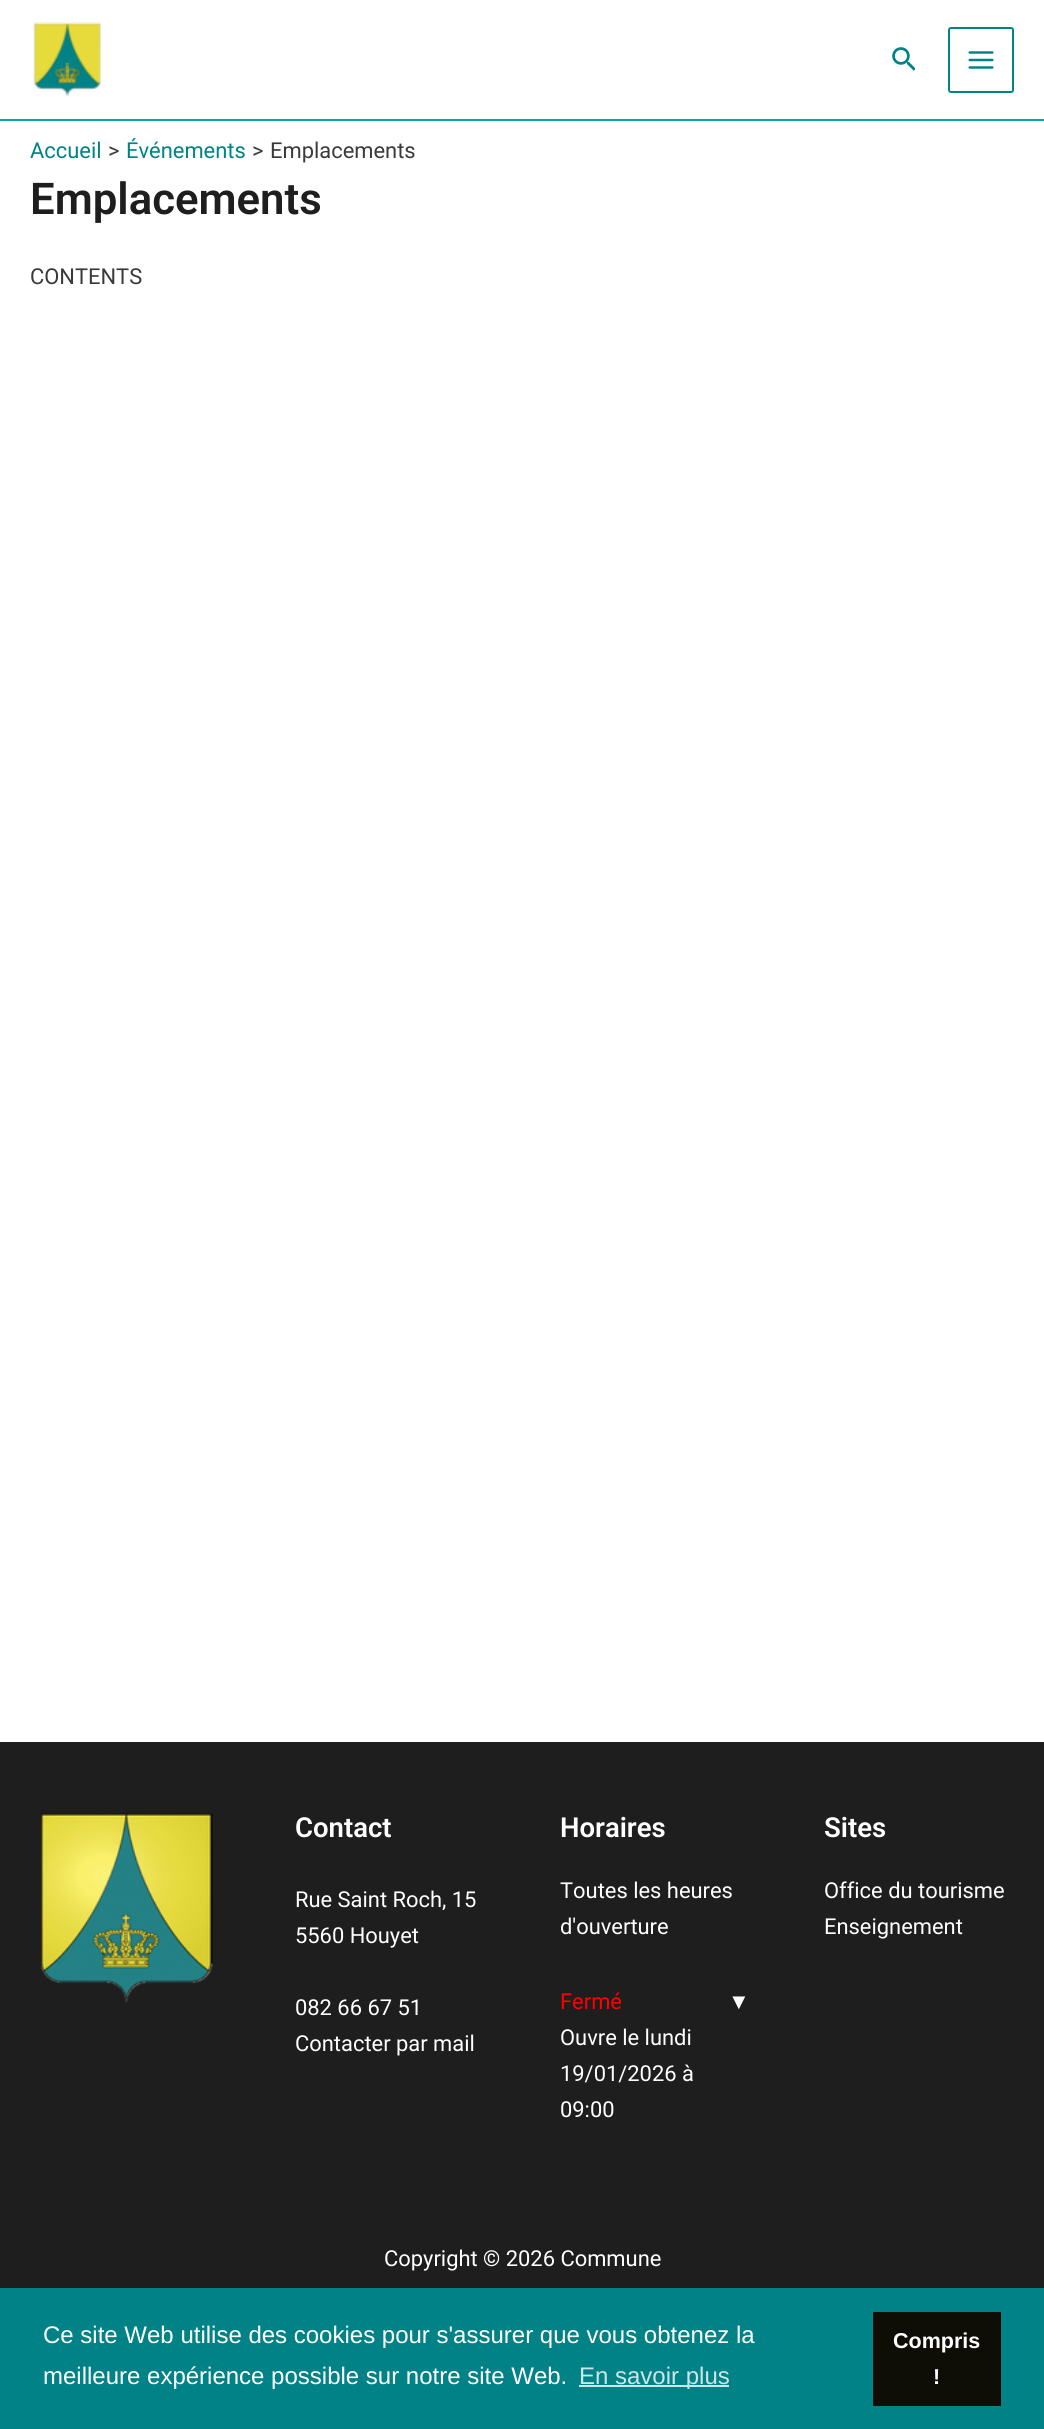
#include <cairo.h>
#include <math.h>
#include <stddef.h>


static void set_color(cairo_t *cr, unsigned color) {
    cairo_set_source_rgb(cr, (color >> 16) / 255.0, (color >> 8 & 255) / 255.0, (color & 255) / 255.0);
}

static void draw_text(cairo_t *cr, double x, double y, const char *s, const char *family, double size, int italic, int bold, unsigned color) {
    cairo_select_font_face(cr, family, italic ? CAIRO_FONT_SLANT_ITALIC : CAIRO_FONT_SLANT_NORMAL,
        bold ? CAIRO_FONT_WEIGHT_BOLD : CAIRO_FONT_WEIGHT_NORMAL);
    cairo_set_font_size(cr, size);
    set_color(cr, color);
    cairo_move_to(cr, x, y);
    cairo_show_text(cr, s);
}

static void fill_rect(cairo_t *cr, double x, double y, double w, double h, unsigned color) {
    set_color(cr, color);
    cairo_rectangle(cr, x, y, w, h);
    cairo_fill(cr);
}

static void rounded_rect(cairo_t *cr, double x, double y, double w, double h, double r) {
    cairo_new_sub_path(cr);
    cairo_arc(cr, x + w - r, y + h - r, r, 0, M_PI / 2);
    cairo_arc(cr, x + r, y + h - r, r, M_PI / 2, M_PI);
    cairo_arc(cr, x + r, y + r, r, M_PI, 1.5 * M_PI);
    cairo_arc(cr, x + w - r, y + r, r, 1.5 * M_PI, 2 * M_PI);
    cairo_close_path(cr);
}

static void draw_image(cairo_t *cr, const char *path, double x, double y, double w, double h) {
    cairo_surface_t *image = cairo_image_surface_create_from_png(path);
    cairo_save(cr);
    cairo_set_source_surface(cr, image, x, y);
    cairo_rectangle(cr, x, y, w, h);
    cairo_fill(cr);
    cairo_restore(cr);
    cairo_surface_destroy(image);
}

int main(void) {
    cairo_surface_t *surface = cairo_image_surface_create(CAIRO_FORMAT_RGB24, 1044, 2429);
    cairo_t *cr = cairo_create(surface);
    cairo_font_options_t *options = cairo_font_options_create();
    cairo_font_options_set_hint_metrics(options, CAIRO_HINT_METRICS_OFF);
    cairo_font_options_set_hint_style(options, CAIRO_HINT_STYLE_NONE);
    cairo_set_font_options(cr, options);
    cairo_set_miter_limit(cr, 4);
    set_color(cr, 0xFFFFFF);
    cairo_paint(cr);
    fill_rect(cr, 0, 119, 1044, 2, 0x00A5A8);
    draw_image(cr, "assets/img1.png", 33, 22, 68, 75);
    draw_image(cr, "assets/img2.png", 892, 47, 23, 24);
    rounded_rect(cr, 949, 28, 64, 64, 2);
    set_color(cr, 0x008287);
    cairo_stroke(cr);
    draw_image(cr, "assets/img3.png", 968, 51, 26, 18);
    draw_text(cr, 30, 158, "Accueil", "Roboto", 21.9, 0, 0, 0x008287);
    draw_text(cr, 108, 158, ">", "Roboto", 21.9, 0, 0, 0x3A3A3A);
    draw_text(cr, 126, 158, "Événements", "Roboto", 21.9, 0, 0, 0x008287);
    draw_text(cr, 252, 158, ">", "Roboto", 21.9, 0, 0, 0x3A3A3A);
    draw_text(cr, 270, 158, "Emplacements", "Roboto", 21.9, 0, 0, 0x3A3A3A);
    draw_text(cr, 30, 214, "Emplacements", "Roboto SemiBold", 43.75, 0, 0, 0x1E1E1E);
    draw_text(cr, 30, 284, "CONTENTS", "Roboto", 21.9, 0, 0, 0x3A3A3A);
    fill_rect(cr, 0, 1742, 1044, 546, 0x1E1E1E);
    draw_image(cr, "assets/img4.png", 40, 1813, 173, 190);
    draw_text(cr, 295, 1837, "Contact", "Roboto SemiBold", 27.5, 0, 0, 0xFFFFFF);
    draw_text(cr, 295, 1907, "Rue Saint Roch, 15", "Roboto", 21.9, 0, 0, 0xFFFFFF);
    draw_text(cr, 295, 1943, "5560 Houyet", "Roboto", 21.9, 0, 0, 0xFFFFFF);
    draw_text(cr, 295, 2015, "082 66 67 51", "Roboto", 21.9, 0, 0, 0xFFFFFF);
    draw_text(cr, 295, 2051, "Contacter par mail", "Roboto", 21.9, 0, 0, 0xFFFFFF);
    draw_text(cr, 560, 1837, "Horaires", "Roboto SemiBold", 27.5, 0, 0, 0xFFFFFF);
    draw_text(cr, 560, 1898, "Toutes les heures", "Roboto", 21.9, 0, 0, 0xFFFFFF);
    draw_text(cr, 560, 1934, "d'ouverture", "Roboto", 21.9, 0, 0, 0xFFFFFF);
    draw_text(cr, 560, 2009, "Fermé", "Roboto", 21.9, 0, 0, 0xFF0000);
    draw_text(cr, 560, 2045, "Ouvre le lundi", "Roboto", 21.9, 0, 0, 0xFFFFFF);
    draw_text(cr, 560, 2081, "19/01/2026 à", "Roboto", 21.9, 0, 0, 0xFFFFFF);
    draw_text(cr, 560, 2117, "09:00", "Roboto", 21.9, 0, 0, 0xFFFFFF);
    draw_text(cr, 728, 2009, "▼", "Liberation Sans", 21.9, 0, 0, 0xFFFFFF);
    draw_text(cr, 824, 1837, "Sites", "Roboto SemiBold", 27.5, 0, 0, 0xFFFFFF);
    draw_text(cr, 824, 1898, "Office du tourisme", "Roboto", 21.9, 0, 0, 0xFFFFFF);
    draw_text(cr, 824, 1934, "Enseignement", "Roboto", 21.9, 0, 0, 0xFFFFFF);
    draw_text(cr, 384, 2266, "Copyright © 2026 Commune", "Roboto", 21.9, 0, 0, 0xFFFFFF);
    fill_rect(cr, 0, 2288, 1044, 141, 0x008287);
    draw_text(cr, 43, 2343, "Ce site Web utilise des cookies pour s'assurer que vous obtenez la", "Liberation Sans", 24, 0, 0, 0xFFFFFF);
    draw_text(cr, 43, 2384, "meilleure expérience possible sur notre site Web.", "Liberation Sans", 24, 0, 0, 0xFFFFFF);
    fill_rect(cr, 579, 2385, 150, 2, 0xCCE6E7);
    draw_text(cr, 579, 2384, "En savoir plus", "Liberation Sans", 24, 0, 0, 0xCCE6E7);
    fill_rect(cr, 873, 2312, 128, 94, 0x0E0D06);
    draw_text(cr, 893, 2348, "Compris", "Liberation Sans", 21.5, 0, 1, 0xFFFFFF);
    draw_text(cr, 933, 2384, "!", "Liberation Sans", 21.5, 0, 1, 0xFFFFFF);
    cairo_surface_write_to_png(surface, "output.png");
    cairo_font_options_destroy(options);
    cairo_destroy(cr);
    cairo_surface_destroy(surface);
    return 0;
}
